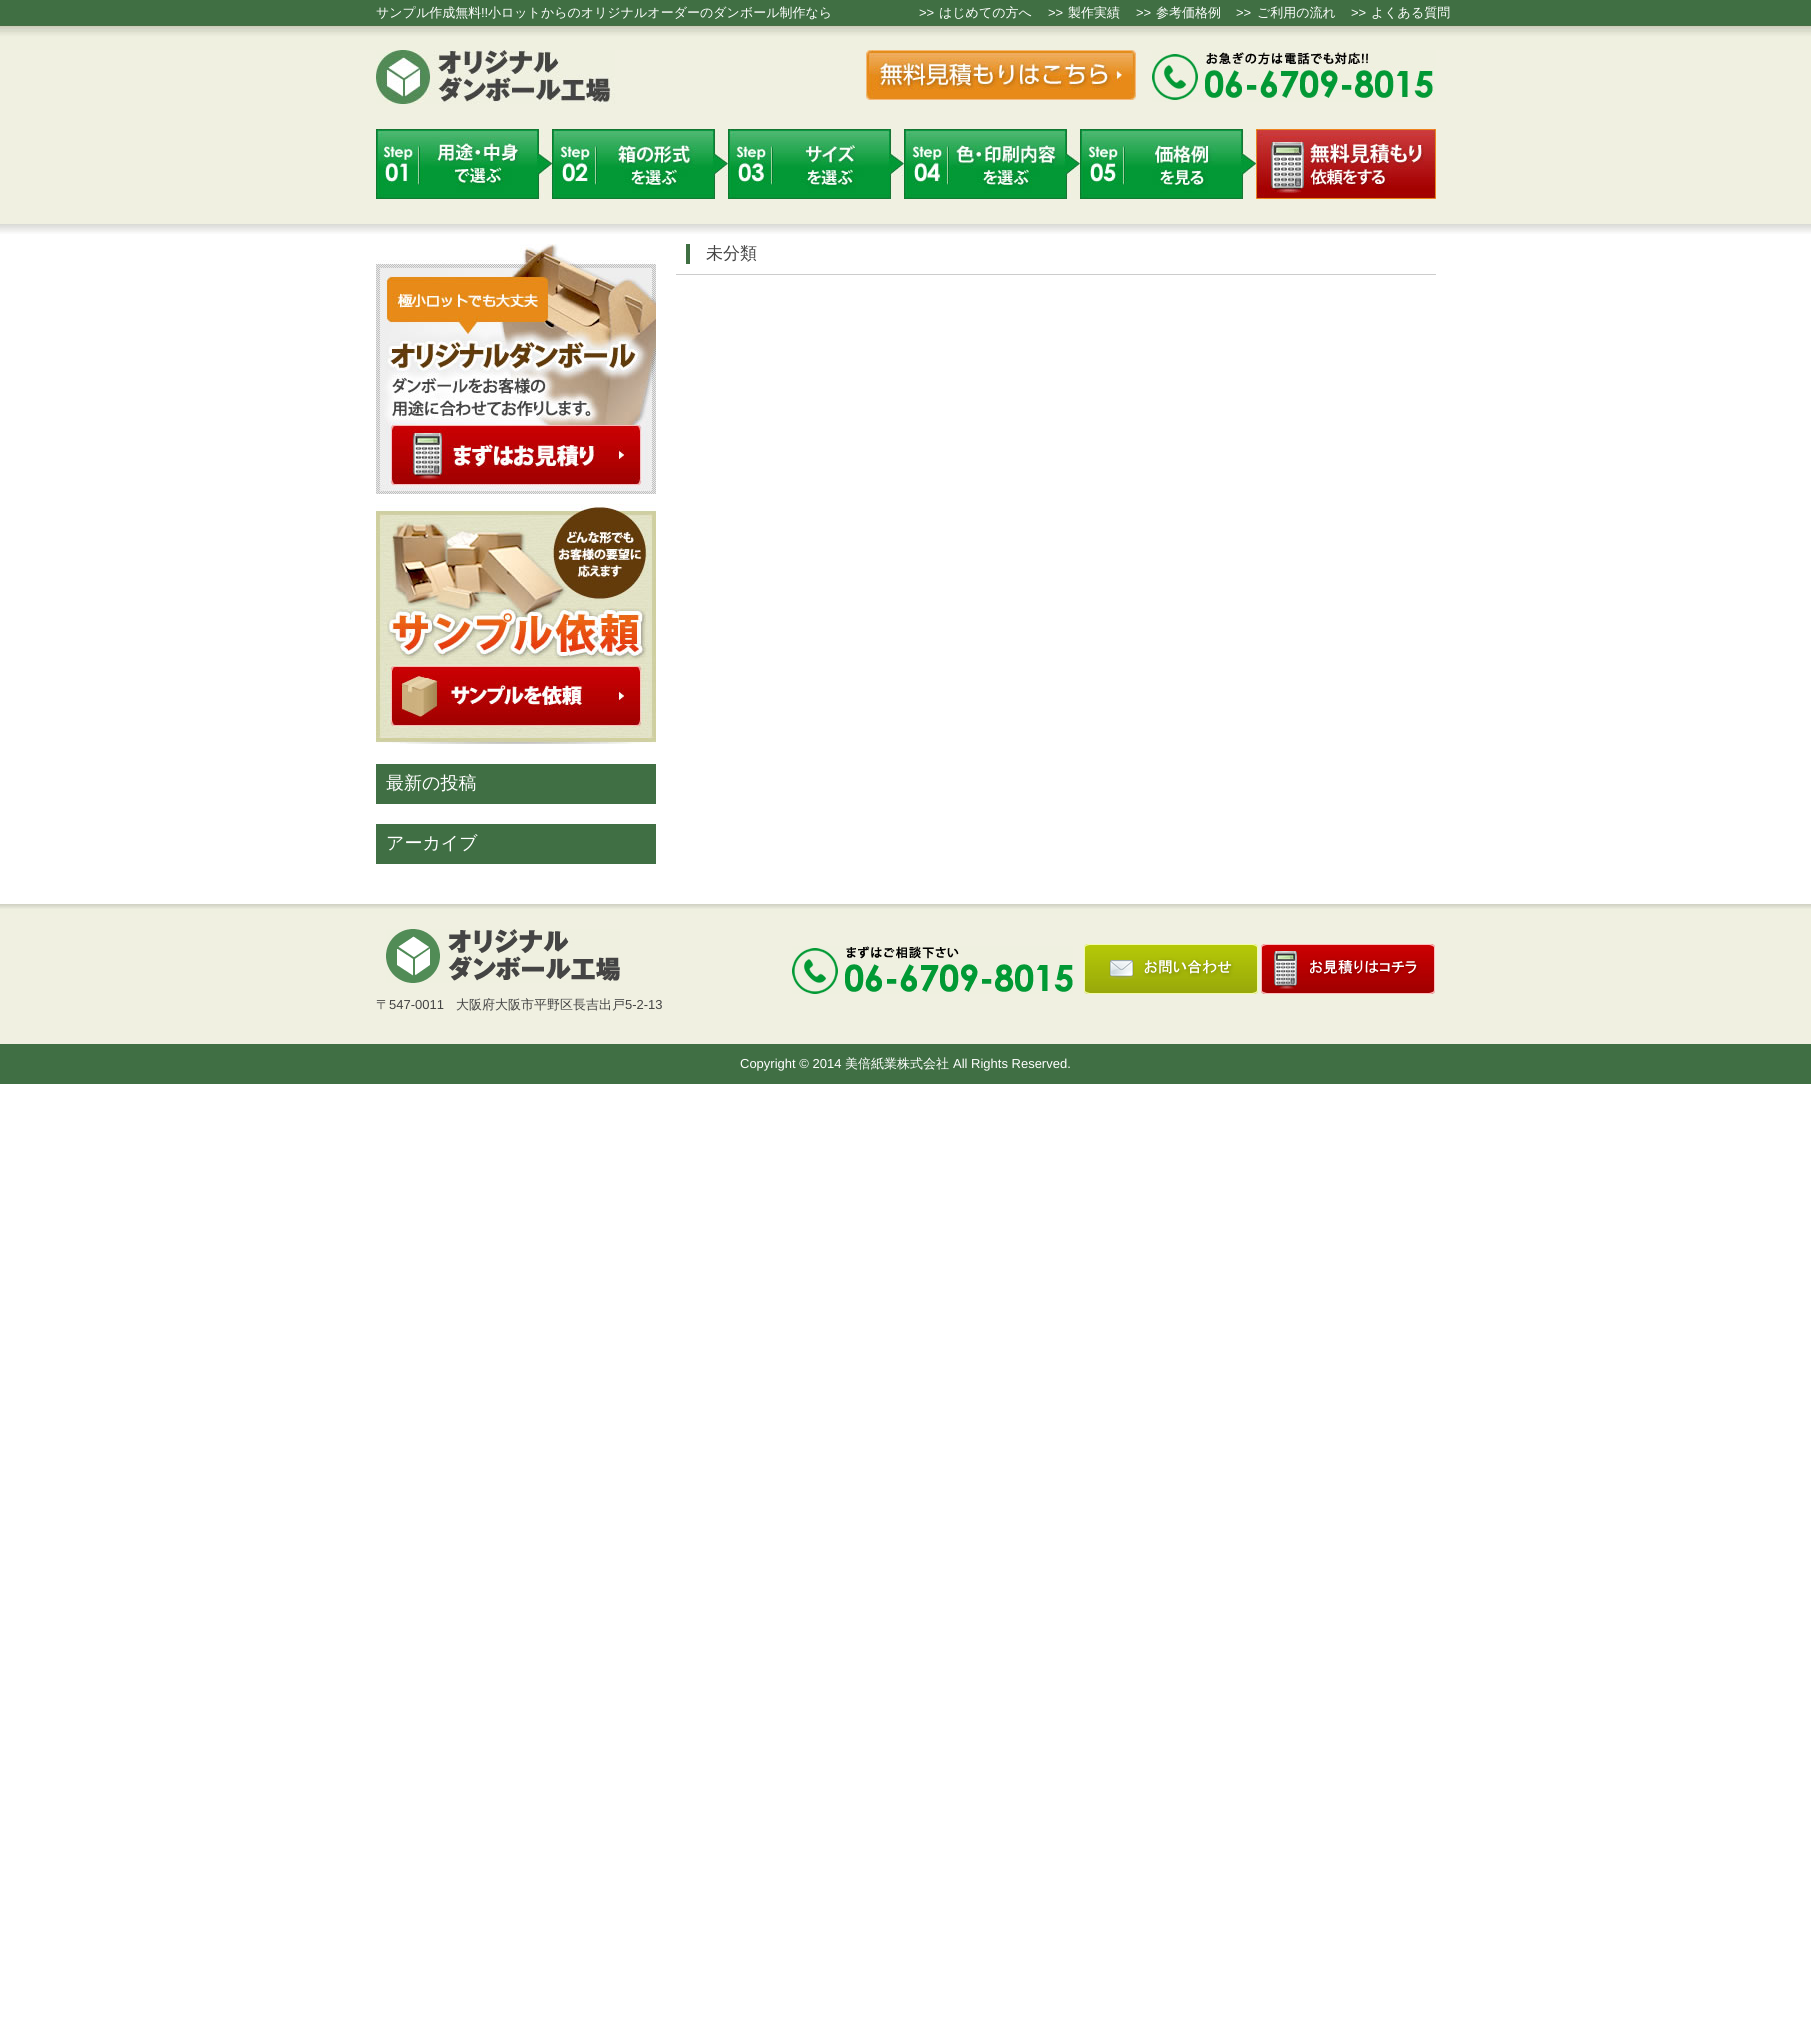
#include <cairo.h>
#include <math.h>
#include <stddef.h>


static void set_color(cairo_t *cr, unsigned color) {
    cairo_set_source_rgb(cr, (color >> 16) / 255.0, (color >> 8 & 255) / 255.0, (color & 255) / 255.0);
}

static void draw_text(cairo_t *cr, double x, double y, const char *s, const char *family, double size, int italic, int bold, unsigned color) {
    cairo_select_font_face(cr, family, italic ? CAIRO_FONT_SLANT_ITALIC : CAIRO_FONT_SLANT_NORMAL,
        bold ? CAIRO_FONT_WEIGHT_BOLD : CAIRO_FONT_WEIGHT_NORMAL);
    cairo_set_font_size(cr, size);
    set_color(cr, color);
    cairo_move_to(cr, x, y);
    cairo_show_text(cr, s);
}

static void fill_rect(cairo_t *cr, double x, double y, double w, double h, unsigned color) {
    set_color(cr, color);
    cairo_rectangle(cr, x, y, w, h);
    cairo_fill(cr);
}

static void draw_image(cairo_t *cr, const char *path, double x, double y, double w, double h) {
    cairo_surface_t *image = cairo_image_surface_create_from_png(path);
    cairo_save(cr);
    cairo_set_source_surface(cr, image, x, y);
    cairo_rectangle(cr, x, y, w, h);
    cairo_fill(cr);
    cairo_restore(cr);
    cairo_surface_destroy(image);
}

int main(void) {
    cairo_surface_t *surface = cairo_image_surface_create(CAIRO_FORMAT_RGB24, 1811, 2024);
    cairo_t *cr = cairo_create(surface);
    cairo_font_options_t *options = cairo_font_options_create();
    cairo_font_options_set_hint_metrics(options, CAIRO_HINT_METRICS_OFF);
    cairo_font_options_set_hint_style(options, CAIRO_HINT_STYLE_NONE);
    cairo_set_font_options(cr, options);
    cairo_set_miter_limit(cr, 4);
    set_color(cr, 0xFFFFFF);
    cairo_paint(cr);
    draw_image(cr, "assets/img1.png", 0, 0, 1811, 50);
    draw_text(cr, 376, 17, "サンプル作成無料", "WenQuanYi Zen Hei Medium", 13, 0, 0, 0xFFFFFF);
    draw_text(cr, 481, 17, "!!", "Liberation Sans", 13, 0, 0, 0xFFFFFF);
    draw_text(cr, 488, 17, "小ロットからのオリジナルオーダーのダンボール制作なら", "WenQuanYi Zen Hei Medium", 13, 0, 0, 0xFFFFFF);
    draw_text(cr, 919, 17, ">>", "Liberation Sans", 13, 0, 0, 0xFFFFFF);
    draw_text(cr, 939, 17, "はじめての方へ", "WenQuanYi Zen Hei Medium", 13, 0, 0, 0xFFFFFF);
    draw_text(cr, 1048, 17, ">>", "Liberation Sans", 13, 0, 0, 0xFFFFFF);
    draw_text(cr, 1068, 17, "製作実績", "WenQuanYi Zen Hei Medium", 13, 0, 0, 0xFFFFFF);
    draw_text(cr, 1136, 17, ">>", "Liberation Sans", 13, 0, 0, 0xFFFFFF);
    draw_text(cr, 1156, 17, "参考価格例", "WenQuanYi Zen Hei Medium", 13, 0, 0, 0xFFFFFF);
    draw_text(cr, 1236, 17, ">>", "Liberation Sans", 13, 0, 0, 0xFFFFFF);
    draw_text(cr, 1257, 17, "ご利用の流れ", "WenQuanYi Zen Hei Medium", 13, 0, 0, 0xFFFFFF);
    draw_text(cr, 1351, 17, ">>", "Liberation Sans", 13, 0, 0, 0xFFFFFF);
    draw_text(cr, 1371, 17, "よくある質問", "WenQuanYi Zen Hei Medium", 13, 0, 0, 0xFFFFFF);
    fill_rect(cr, 0, 50, 1811, 174, 0xF0F0E1);
    draw_image(cr, "assets/img2.png", 0, 224, 1811, 10);
    draw_image(cr, "assets/img3.png", 376, 50, 239, 54);
    draw_image(cr, "assets/img4.png", 866, 50, 270, 50);
    draw_image(cr, "assets/img5.png", 1152, 50, 284, 52);
    draw_image(cr, "assets/img6.png", 376, 129, 176, 70);
    draw_image(cr, "assets/img7.png", 552, 129, 176, 70);
    draw_image(cr, "assets/img8.png", 728, 129, 176, 70);
    draw_image(cr, "assets/img9.png", 904, 129, 176, 70);
    draw_image(cr, "assets/img10.png", 1080, 129, 176, 70);
    draw_image(cr, "assets/img11.png", 1256, 129, 180, 70);
    draw_image(cr, "assets/img12.png", 0, 904, 1811, 10);
    fill_rect(cr, 686, 244, 4, 20, 0x406F43);
    fill_rect(cr, 676, 274, 760, 1, 0xCCCCCC);
    draw_text(cr, 706, 259, "未分類", "WenQuanYi Zen Hei Medium", 17, 0, 0, 0x434343);
    draw_image(cr, "assets/img13.png", 376, 244, 280, 250);
    draw_image(cr, "assets/img14.png", 376, 504, 280, 240);
    fill_rect(cr, 376, 764, 280, 40, 0x406F44);
    draw_text(cr, 386, 789, "最新の投稿", "WenQuanYi Zen Hei Medium", 18, 0, 0, 0xFFFFFF);
    fill_rect(cr, 376, 824, 280, 40, 0x406F44);
    draw_text(cr, 386, 849, "アーカイブ", "WenQuanYi Zen Hei Medium", 18, 0, 0, 0xFFFFFF);
    fill_rect(cr, 0, 914, 1811, 130, 0xF0F0E1);
    draw_image(cr, "assets/img15.png", 792, 946, 281, 48);
    draw_image(cr, "assets/img16.png", 1084, 944, 174, 50);
    draw_image(cr, "assets/img17.png", 1261, 944, 174, 50);
    draw_image(cr, "assets/img18.png", 386, 929, 234, 54);
    draw_text(cr, 376, 1009, "〒", "WenQuanYi Zen Hei Medium", 13, 0, 0, 0x434343);
    draw_text(cr, 389, 1009, "547-0011", "Liberation Sans", 13, 0, 0, 0x434343);
    draw_text(cr, 456, 1009, "大阪府大阪市平野区長吉出戸", "WenQuanYi Zen Hei Medium", 13, 0, 0, 0x434343);
    draw_text(cr, 625, 1009, "5-2-13", "Liberation Sans", 13, 0, 0, 0x434343);
    fill_rect(cr, 0, 1044, 1811, 40, 0x406F44);
    draw_text(cr, 740, 1068, "Copyright © 2014", "Liberation Sans", 13, 0, 0, 0xFFFFFF);
    draw_text(cr, 845, 1068, "美倍紙業株式会社", "WenQuanYi Zen Hei Medium", 13, 0, 0, 0xFFFFFF);
    draw_text(cr, 953, 1068, "All Rights Reserved.", "Liberation Sans", 13, 0, 0, 0xFFFFFF);
    cairo_surface_write_to_png(surface, "output.png");
    cairo_font_options_destroy(options);
    cairo_destroy(cr);
    cairo_surface_destroy(surface);
    return 0;
}
